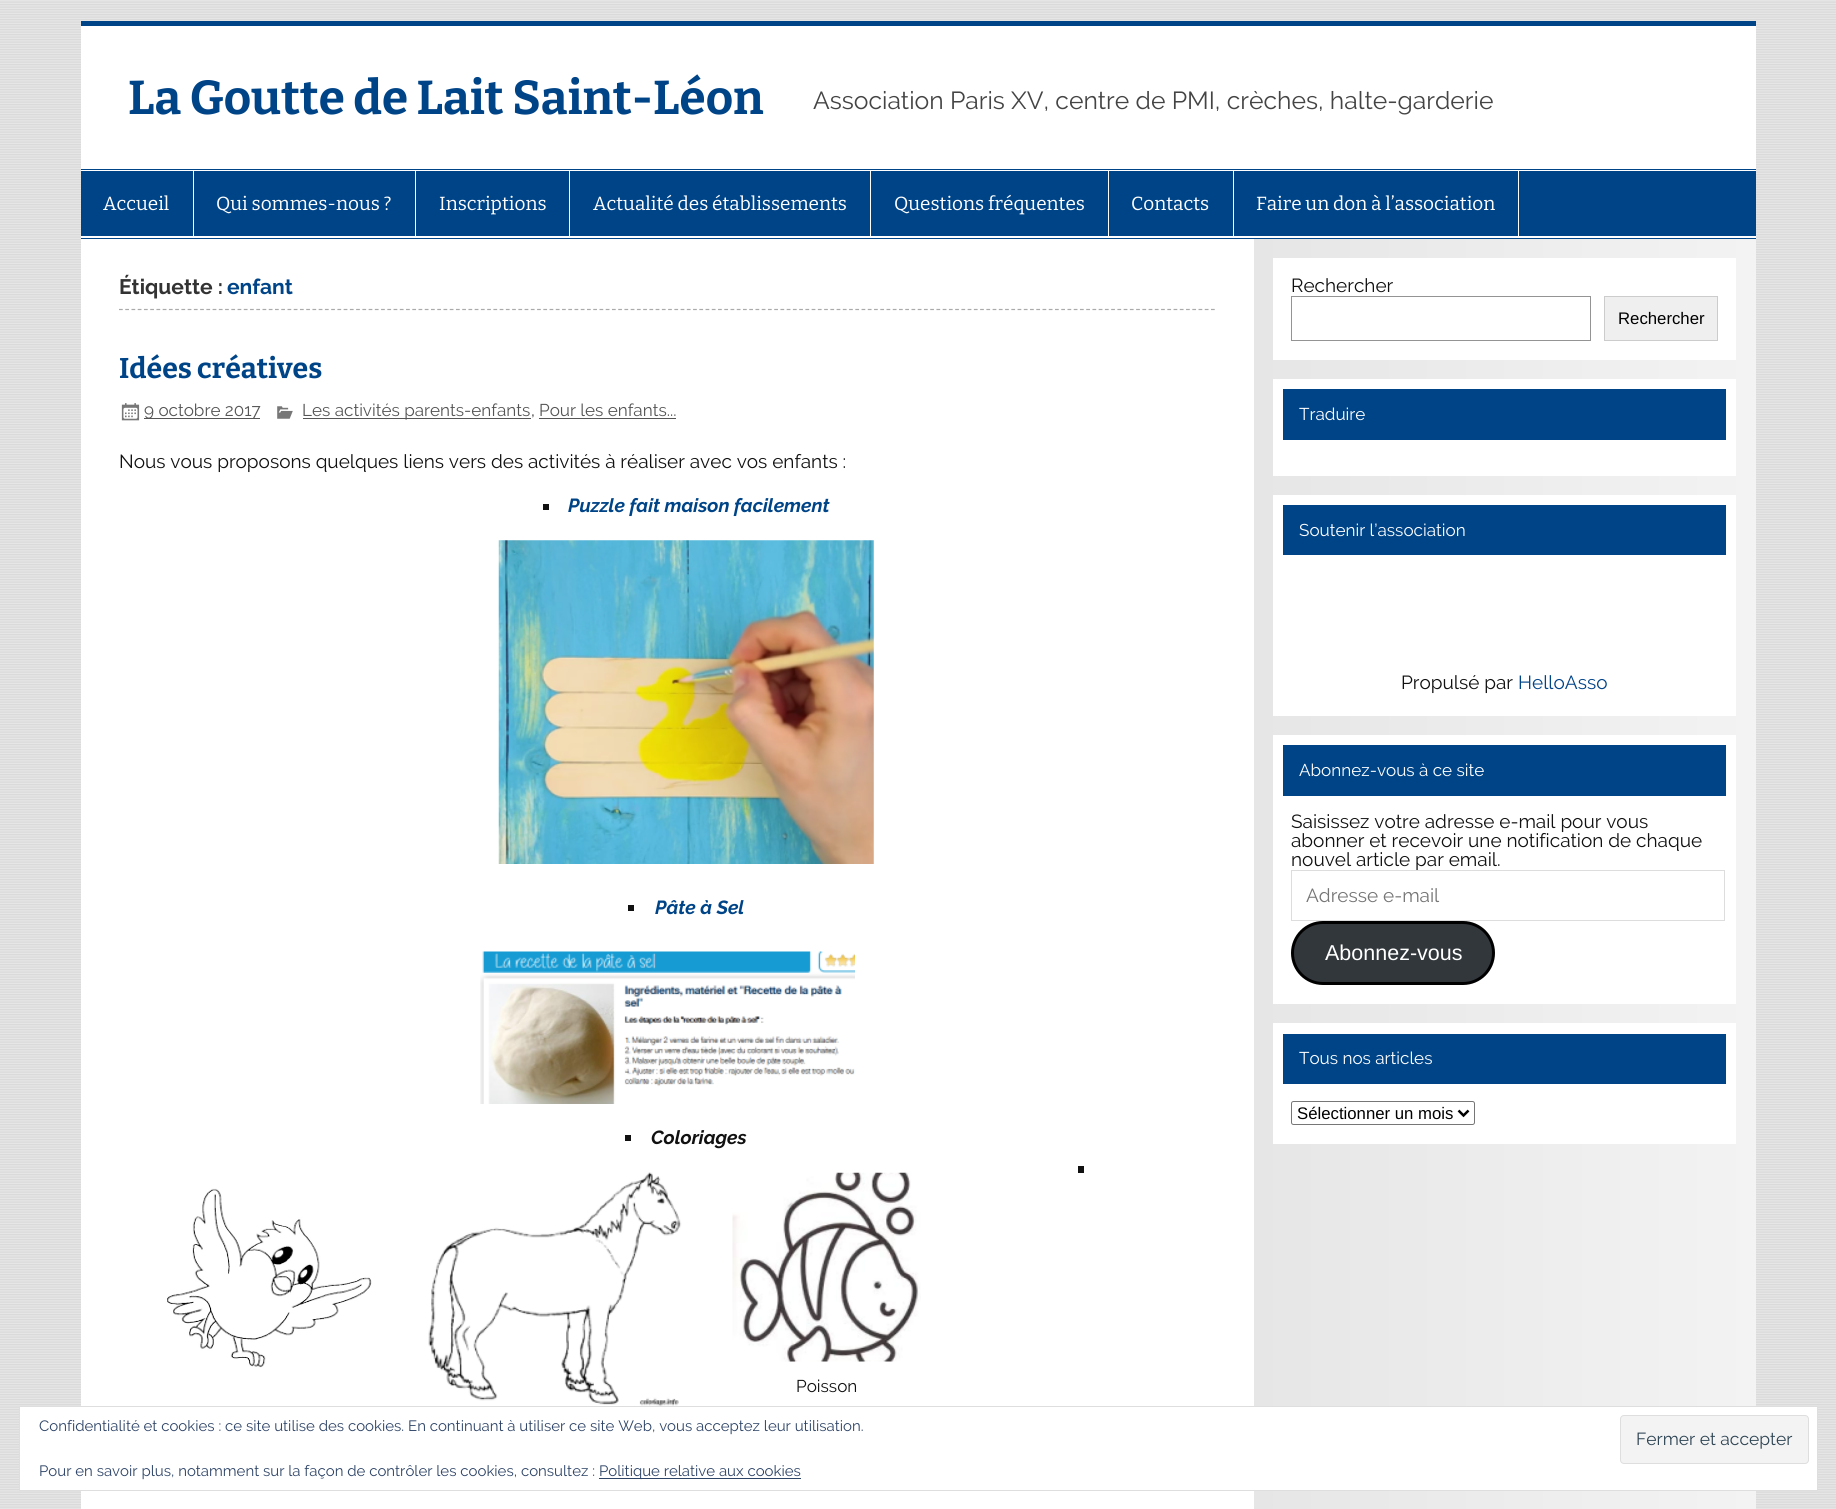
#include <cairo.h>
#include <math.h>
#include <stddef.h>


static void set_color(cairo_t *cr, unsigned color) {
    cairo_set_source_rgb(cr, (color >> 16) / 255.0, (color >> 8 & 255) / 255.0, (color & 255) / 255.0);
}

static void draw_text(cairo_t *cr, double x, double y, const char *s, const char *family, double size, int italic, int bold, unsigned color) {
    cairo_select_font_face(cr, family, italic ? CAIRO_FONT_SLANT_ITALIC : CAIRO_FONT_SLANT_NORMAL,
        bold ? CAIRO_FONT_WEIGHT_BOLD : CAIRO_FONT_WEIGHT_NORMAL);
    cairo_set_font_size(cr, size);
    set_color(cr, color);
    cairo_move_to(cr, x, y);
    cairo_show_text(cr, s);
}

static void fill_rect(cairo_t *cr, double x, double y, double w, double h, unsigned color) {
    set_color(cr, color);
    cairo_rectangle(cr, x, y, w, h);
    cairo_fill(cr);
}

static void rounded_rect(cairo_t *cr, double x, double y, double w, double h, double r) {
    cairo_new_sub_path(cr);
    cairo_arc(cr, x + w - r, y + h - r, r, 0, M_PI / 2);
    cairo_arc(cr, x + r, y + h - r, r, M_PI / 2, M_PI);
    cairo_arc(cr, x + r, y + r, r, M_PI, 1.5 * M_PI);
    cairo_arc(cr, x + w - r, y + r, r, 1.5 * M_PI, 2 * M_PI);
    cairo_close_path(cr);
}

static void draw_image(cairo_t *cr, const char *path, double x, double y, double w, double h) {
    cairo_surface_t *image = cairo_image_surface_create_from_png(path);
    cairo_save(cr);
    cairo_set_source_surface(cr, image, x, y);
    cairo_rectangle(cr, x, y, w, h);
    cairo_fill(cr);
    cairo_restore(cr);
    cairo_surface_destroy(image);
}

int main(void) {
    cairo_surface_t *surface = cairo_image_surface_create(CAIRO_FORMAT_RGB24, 1836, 1509);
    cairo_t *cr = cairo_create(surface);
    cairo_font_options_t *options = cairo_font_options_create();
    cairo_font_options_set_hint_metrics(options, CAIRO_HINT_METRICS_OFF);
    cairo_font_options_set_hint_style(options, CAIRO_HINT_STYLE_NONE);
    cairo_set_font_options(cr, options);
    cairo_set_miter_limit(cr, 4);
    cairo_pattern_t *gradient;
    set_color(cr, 0xE5E5E5);
    cairo_paint(cr);
    draw_image(cr, "assets/img1.png", 0, 1, 1836, 1507);
    fill_rect(cr, 81, 26, 1675, 1483, 0xFFFFFF);
    fill_rect(cr, 81, 21, 1675, 5, 0x004488);
    draw_text(cr, 128, 114, "La Goutte de Lait Saint-Léon", "Bitter", 47.5, 0, 1, 0x004488);
    draw_text(cr, 813, 109, "Association Paris XV, centre de PMI, crèches, halte-garderie", "Raleway", 24.7, 0, 0, 0x444444);
    fill_rect(cr, 81, 169, 1675, 1, 0x004488);
    fill_rect(cr, 81, 238, 1675, 1, 0x004488);
    fill_rect(cr, 81, 171, 1675, 65, 0x004488);
    fill_rect(cr, 193, 171, 1, 65, 0xFFFFFF);
    draw_text(cr, 103, 210, "Accueil", "Bitter", 19, 0, 0, 0xFFFFFF);
    fill_rect(cr, 415, 171, 1, 65, 0xFFFFFF);
    draw_text(cr, 216, 210, "Qui sommes-nous ?", "Bitter", 19, 0, 0, 0xFFFFFF);
    fill_rect(cr, 569, 171, 1, 65, 0xFFFFFF);
    draw_text(cr, 439, 210, "Inscriptions", "Bitter", 19, 0, 0, 0xFFFFFF);
    fill_rect(cr, 870, 171, 1, 65, 0xFFFFFF);
    draw_text(cr, 593, 210, "Actualité des établissements", "Bitter", 19, 0, 0, 0xFFFFFF);
    fill_rect(cr, 1108, 171, 1, 65, 0xFFFFFF);
    draw_text(cr, 894, 210, "Questions fréquentes", "Bitter", 19, 0, 0, 0xFFFFFF);
    fill_rect(cr, 1233, 171, 1, 65, 0xFFFFFF);
    draw_text(cr, 1131, 210, "Contacts", "Bitter", 19, 0, 0, 0xFFFFFF);
    fill_rect(cr, 1518, 171, 1, 65, 0xFFFFFF);
    draw_text(cr, 1256, 210, "Faire un don à l’association", "Bitter", 19, 0, 0, 0xFFFFFF);
    cairo_new_path(cr);
    cairo_move_to(cr, 119, 309.5);
    cairo_line_to(cr, 1215, 309.5);
    set_color(cr, 0xAAAAAA);
    cairo_set_line_width(cr, 1.2);
    cairo_set_dash(cr, (double[]){3.75, 2.49}, 2, 0);
    cairo_stroke(cr);
    draw_text(cr, 119, 294, "Étiquette :", "Raleway", 21, 0, 1, 0x333333);
    draw_text(cr, 227, 294, "enfant", "Raleway", 21, 0, 1, 0x004488);
    draw_text(cr, 119, 378, "Idées créatives", "Bitter", 28.5, 0, 1, 0x004488);
    draw_image(cr, "assets/img2.png", 121, 403, 19, 18);
    fill_rect(cr, 144, 418, 116, 1, 0x555555);
    draw_text(cr, 144, 416, "9 octobre 2017", "Raleway", 17.1, 0, 0, 0x555555);
    draw_image(cr, "assets/img3.png", 277, 406, 16, 13);
    fill_rect(cr, 303, 418, 228, 1, 0x555555);
    draw_text(cr, 302, 416, "Les activités parents-enfants", "Raleway", 17.1, 0, 0, 0x555555);
    draw_text(cr, 531, 416, ",", "Raleway", 17.1, 0, 0, 0x333333);
    draw_text(cr, 539, 416, "Pour les enfants...", "Raleway", 17.1, 0, 0, 0x555555);
    fill_rect(cr, 539, 418, 137, 1, 0x555555);
    draw_text(cr, 119, 468, "Nous vous proposons quelques liens vers des activités à réaliser avec vos enfants :", "Raleway", 19, 0, 0, 0x111111);
    fill_rect(cr, 543, 504, 6, 6, 0x111111);
    draw_text(cr, 568, 512, "Puzzle fait maison facilement", "Raleway", 19, 1, 1, 0x004488);
    draw_image(cr, "assets/img4.png", 498, 540, 376, 324);
    fill_rect(cr, 628, 905, 6, 6, 0x111111);
    draw_text(cr, 655, 914, "Pâte à Sel", "Raleway", 19, 1, 1, 0x004488);
    draw_image(cr, "assets/img5.png", 480, 951, 375, 153);
    fill_rect(cr, 625, 1135, 6, 6, 0x111111);
    draw_text(cr, 651, 1144, "Coloriages", "Raleway", 19, 1, 1, 0x111111);
    fill_rect(cr, 1078, 1166, 6, 7, 0x111111);
    draw_image(cr, "assets/img6.png", 167, 1188, 205, 180);
    draw_image(cr, "assets/img7.png", 428, 1172, 254, 234);
    draw_image(cr, "assets/img8.png", 732, 1172, 189, 190);
    draw_text(cr, 796, 1392, "Poisson", "Raleway", 17.1, 0, 0, 0x111111);
    gradient = cairo_pattern_create_linear(1254, 1115, 1756, 1115);
    cairo_pattern_add_color_stop_rgba(gradient, 0, 0.902, 0.902, 0.902, 1);
    cairo_pattern_add_color_stop_rgba(gradient, 1, 0.953, 0.953, 0.953, 1);
    cairo_set_source(cr, gradient);
    cairo_pattern_destroy(gradient);
    cairo_rectangle(cr, 1254, 239, 502, 1270);
    cairo_fill(cr);
    fill_rect(cr, 1273, 258, 463, 102, 0xFFFFFF);
    draw_text(cr, 1291, 292, "Rechercher", "Raleway", 19, 0, 0, 0x111111);
    cairo_rectangle(cr, 1291.5, 296.5, 299, 44);
    set_color(cr, 0x949494);
    cairo_set_line_width(cr, 1);
    cairo_set_dash(cr, NULL, 0, 0);
    cairo_stroke(cr);
    set_color(cr, 0xEFEFEF);
    cairo_rectangle(cr, 1604.5, 296.5, 113, 44);
    cairo_fill_preserve(cr);
    set_color(cr, 0xCCCCCC);
    cairo_stroke(cr);
    draw_text(cr, 1618, 324, "Rechercher", "Liberation Sans", 16.75, 0, 0, 0x000000);
    fill_rect(cr, 1273, 379, 463, 97, 0xFFFFFF);
    fill_rect(cr, 1283, 389, 443, 51, 0x004488);
    draw_text(cr, 1299, 420, "Traduire", "Raleway", 17.1, 0, 0, 0xFFFFFF);
    fill_rect(cr, 1273, 495, 463, 221, 0xFFFFFF);
    fill_rect(cr, 1283, 505, 443, 50, 0x004488);
    draw_text(cr, 1299, 536, "Soutenir l’association", "Raleway", 17.1, 0, 0, 0xFFFFFF);
    draw_text(cr, 1401, 689, "Propulsé par", "Raleway", 19, 0, 0, 0x111111);
    draw_text(cr, 1518, 689, "HelloAsso", "Raleway", 19, 0, 0, 0x004488);
    fill_rect(cr, 1273, 735, 463, 269, 0xFFFFFF);
    fill_rect(cr, 1283, 745, 443, 51, 0x004488);
    draw_text(cr, 1299, 776, "Abonnez-vous à ce site", "Raleway", 17.1, 0, 0, 0xFFFFFF);
    draw_text(cr, 1291, 828, "Saisissez votre adresse e-mail pour vous", "Raleway", 19, 0, 0, 0x111111);
    draw_text(cr, 1291, 847, "abonner et recevoir une notification de chaque", "Raleway", 19, 0, 0, 0x111111);
    draw_text(cr, 1291, 866, "nouvel article par email.", "Raleway", 19, 0, 0, 0x111111);
    cairo_rectangle(cr, 1291.5, 870.5, 433, 50);
    set_color(cr, 0xDDDDDD);
    cairo_stroke(cr);
    draw_text(cr, 1306, 902, "Adresse e-mail", "Raleway", 19, 0, 0, 0x757575);
    set_color(cr, 0x32373C);
    rounded_rect(cr, 1292.5, 922.5, 201, 61, 30.5);
    cairo_fill_preserve(cr);
    set_color(cr, 0x000000);
    cairo_set_line_width(cr, 3);
    cairo_stroke(cr);
    draw_text(cr, 1325, 960, "Abonnez-vous", "Liberation Sans", 21.5, 0, 0, 0xFFFFFF);
    fill_rect(cr, 1273, 1023, 463, 121, 0xFFFFFF);
    fill_rect(cr, 1283, 1034, 443, 50, 0x004488);
    draw_text(cr, 1299, 1064, "Tous nos articles", "Raleway", 17.1, 0, 0, 0xFFFFFF);
    rounded_rect(cr, 1291.5, 1101.5, 183, 23, 2);
    set_color(cr, 0x767676);
    cairo_set_line_width(cr, 1);
    cairo_stroke(cr);
    cairo_new_path(cr);
    cairo_move_to(cr, 1458.5, 1110.5);
    cairo_line_to(cr, 1463.5, 1115.5);
    cairo_line_to(cr, 1468.5, 1110.5);
    set_color(cr, 0x000000);
    cairo_set_line_width(cr, 2.5);
    cairo_stroke(cr);
    draw_text(cr, 1297, 1119, "Sélectionner un mois", "Liberation Sans", 16.75, 0, 0, 0x000000);
    set_color(cr, 0xFFFFFF);
    cairo_rectangle(cr, 19.5, 1406.5, 1798, 84);
    cairo_fill_preserve(cr);
    set_color(cr, 0xDEDEDE);
    cairo_set_line_width(cr, 1);
    cairo_stroke(cr);
    draw_text(cr, 39, 1431, "Confidentialité et cookies : ce site utilise des cookies. En continuant à utiliser ce site Web, vous acceptez leur utilisation.", "Raleway", 15, 0, 0, 0x2E4467);
    set_color(cr, 0xF3F3F3);
    rounded_rect(cr, 1620.5, 1415.5, 188, 48, 3.5);
    cairo_fill_preserve(cr);
    set_color(cr, 0xDEDEDE);
    cairo_stroke(cr);
    draw_text(cr, 1636, 1445, "Fermer et accepter", "Raleway", 17.5, 0, 0, 0x2E4453);
    draw_text(cr, 39, 1476, "Pour en savoir plus, notamment sur la façon de contrôler les cookies, consultez :", "Raleway", 15, 0, 0, 0x2E4467);
    fill_rect(cr, 599, 1478, 202, 1, 0x2E4467);
    draw_text(cr, 599, 1476, "Politique relative aux cookies", "Raleway", 15, 0, 0, 0x2E4467);
    cairo_surface_write_to_png(surface, "output.png");
    cairo_font_options_destroy(options);
    cairo_destroy(cr);
    cairo_surface_destroy(surface);
    return 0;
}
